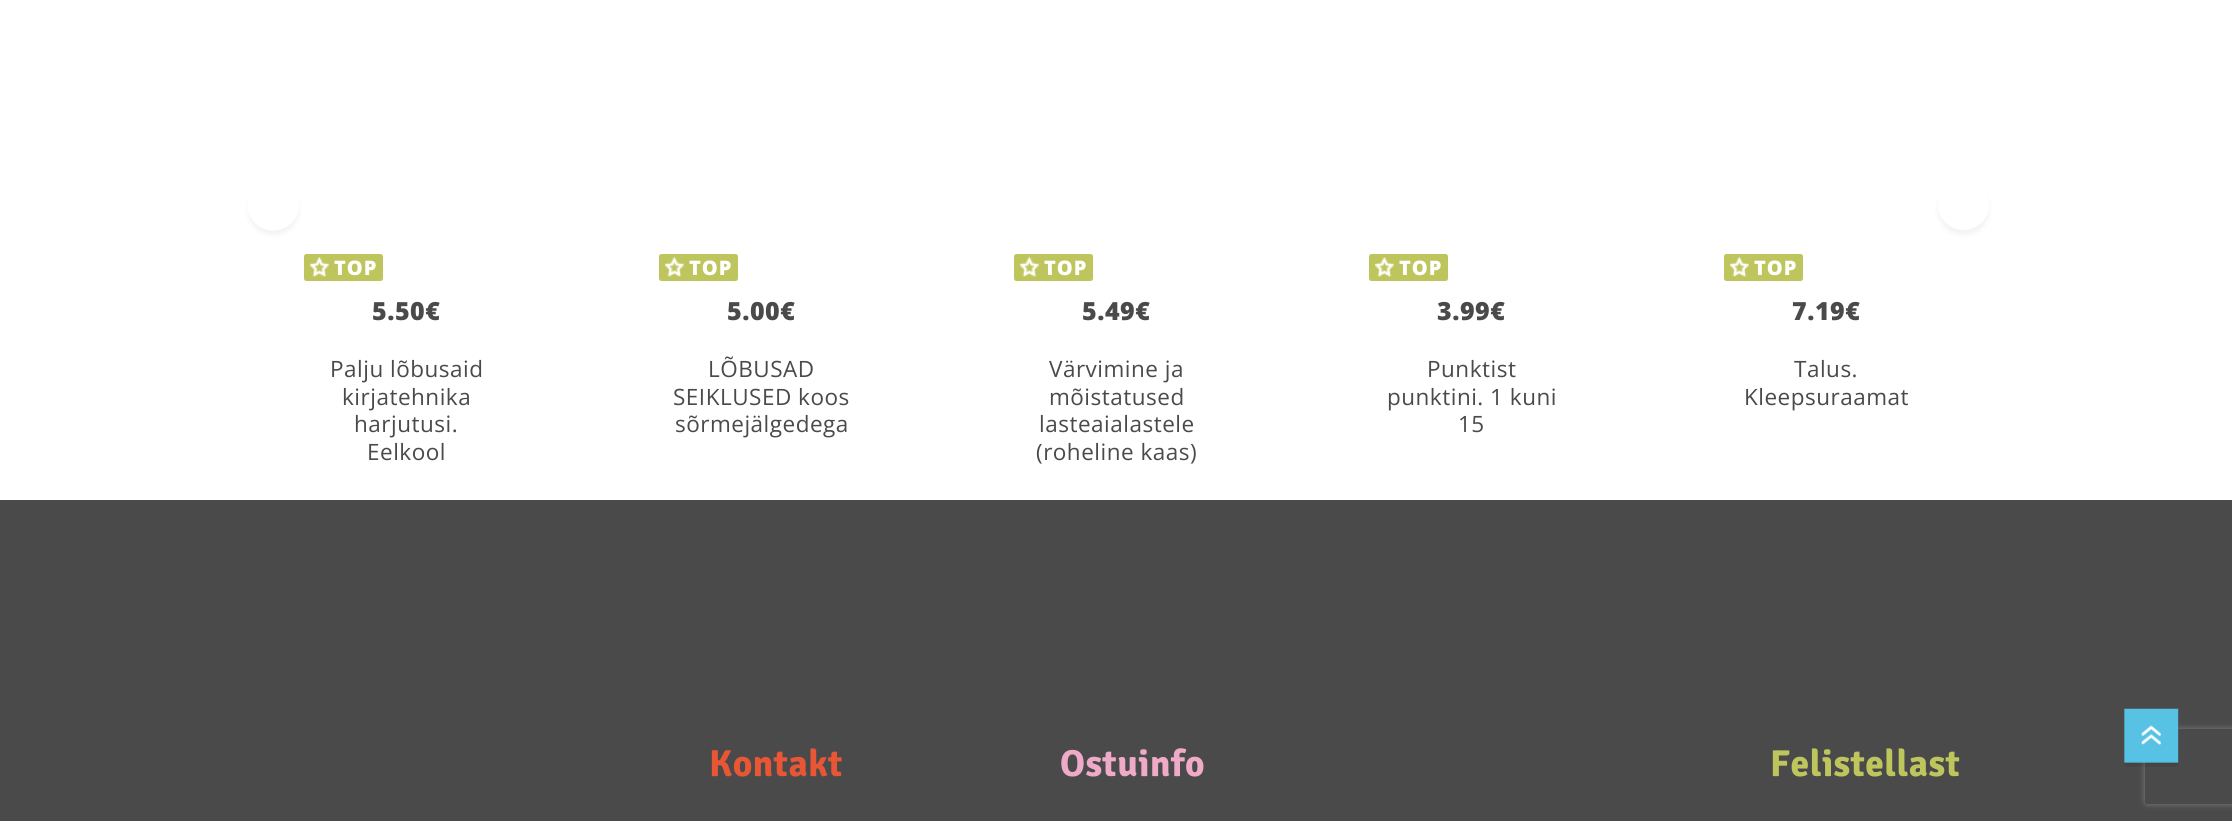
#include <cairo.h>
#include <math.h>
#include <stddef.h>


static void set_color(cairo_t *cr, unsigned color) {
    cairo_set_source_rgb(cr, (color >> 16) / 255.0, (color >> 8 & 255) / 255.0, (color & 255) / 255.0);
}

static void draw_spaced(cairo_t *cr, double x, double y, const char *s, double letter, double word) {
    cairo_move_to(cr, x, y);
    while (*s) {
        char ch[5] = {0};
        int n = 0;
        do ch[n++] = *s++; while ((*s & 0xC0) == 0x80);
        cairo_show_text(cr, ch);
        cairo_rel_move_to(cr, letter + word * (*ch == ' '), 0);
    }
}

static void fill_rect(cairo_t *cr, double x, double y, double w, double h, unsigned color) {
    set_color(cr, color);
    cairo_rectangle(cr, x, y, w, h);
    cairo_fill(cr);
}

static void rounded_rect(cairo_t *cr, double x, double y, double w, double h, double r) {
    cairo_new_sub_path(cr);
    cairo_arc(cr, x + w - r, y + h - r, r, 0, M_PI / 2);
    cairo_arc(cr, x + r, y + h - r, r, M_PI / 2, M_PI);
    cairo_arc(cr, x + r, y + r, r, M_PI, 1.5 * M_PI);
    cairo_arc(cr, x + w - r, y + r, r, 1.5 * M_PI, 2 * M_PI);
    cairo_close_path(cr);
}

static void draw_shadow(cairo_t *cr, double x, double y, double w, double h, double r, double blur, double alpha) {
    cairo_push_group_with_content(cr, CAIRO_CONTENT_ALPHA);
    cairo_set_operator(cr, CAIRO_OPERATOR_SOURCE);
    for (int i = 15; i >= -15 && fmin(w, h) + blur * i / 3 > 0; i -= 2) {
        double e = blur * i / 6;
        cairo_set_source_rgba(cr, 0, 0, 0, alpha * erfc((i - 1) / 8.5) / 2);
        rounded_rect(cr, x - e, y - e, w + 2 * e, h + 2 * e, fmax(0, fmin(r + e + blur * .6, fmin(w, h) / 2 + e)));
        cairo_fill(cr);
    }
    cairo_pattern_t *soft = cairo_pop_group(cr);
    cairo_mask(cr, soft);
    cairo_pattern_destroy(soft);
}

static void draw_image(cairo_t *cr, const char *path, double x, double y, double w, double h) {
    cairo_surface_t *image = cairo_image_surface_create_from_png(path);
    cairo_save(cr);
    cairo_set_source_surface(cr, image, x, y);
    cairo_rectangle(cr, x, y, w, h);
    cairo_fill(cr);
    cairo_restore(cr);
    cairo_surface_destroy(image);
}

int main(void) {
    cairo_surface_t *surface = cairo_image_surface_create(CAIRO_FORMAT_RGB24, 2232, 821);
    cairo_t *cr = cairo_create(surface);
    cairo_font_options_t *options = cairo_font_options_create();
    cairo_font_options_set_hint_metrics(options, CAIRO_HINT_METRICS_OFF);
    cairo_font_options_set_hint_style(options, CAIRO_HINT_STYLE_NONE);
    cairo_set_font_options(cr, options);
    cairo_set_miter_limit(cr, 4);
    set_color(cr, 0xFFFFFF);
    cairo_paint(cr);
    cairo_save(cr);
    cairo_set_fill_rule(cr, CAIRO_FILL_RULE_EVEN_ODD);
    cairo_new_path(cr);
    cairo_move_to(cr, 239, 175);
    cairo_line_to(cr, 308, 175);
    cairo_line_to(cr, 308, 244);
    cairo_line_to(cr, 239, 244);
    cairo_close_path(cr);
    cairo_move_to(cr, 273, 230.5);
    cairo_curve_to(cr, 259, 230.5, 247.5, 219, 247.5, 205);
    cairo_curve_to(cr, 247.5, 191, 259, 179.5, 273, 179.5);
    cairo_curve_to(cr, 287.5, 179.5, 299, 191, 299, 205);
    cairo_curve_to(cr, 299, 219, 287.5, 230.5, 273, 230.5);
    cairo_close_path(cr);
    cairo_clip(cr);
    set_color(cr, 0x000000);
    draw_shadow(cr, 248, 184, 51, 51, 25.5, 2.5, 0.05);
    cairo_restore(cr);
    cairo_save(cr);
    cairo_set_fill_rule(cr, CAIRO_FILL_RULE_EVEN_ODD);
    cairo_new_path(cr);
    cairo_move_to(cr, 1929, 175);
    cairo_line_to(cr, 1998, 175);
    cairo_line_to(cr, 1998, 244);
    cairo_line_to(cr, 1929, 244);
    cairo_close_path(cr);
    cairo_move_to(cr, 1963.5, 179);
    cairo_curve_to(cr, 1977.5, 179, 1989, 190.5, 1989, 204.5);
    cairo_curve_to(cr, 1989, 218.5, 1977.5, 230, 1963.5, 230);
    cairo_curve_to(cr, 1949.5, 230, 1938, 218.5, 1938, 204.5);
    cairo_curve_to(cr, 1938, 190.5, 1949.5, 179, 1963.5, 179);
    cairo_close_path(cr);
    cairo_clip(cr);
    set_color(cr, 0x000000);
    draw_shadow(cr, 1938, 184, 51, 51, 25.5, 2.5, 0.05);
    cairo_restore(cr);
    set_color(cr, 0xBFC55D);
    rounded_rect(cr, 304, 254, 79, 27, 2.5);
    cairo_fill(cr);
    draw_image(cr, "assets/img1.png", 310, 257, 19, 20);
    cairo_select_font_face(cr, "Open Sans ExtraBold", CAIRO_FONT_SLANT_NORMAL, CAIRO_FONT_WEIGHT_NORMAL);
    cairo_set_font_size(cr, 20);
    set_color(cr, 0xFFFFFF);
    draw_spaced(cr, 334, 275, "TOP", 1, 0);
    cairo_set_font_size(cr, 25);
    set_color(cr, 0x4A4A4A);
    draw_spaced(cr, 372, 320, "5.50€", 0.5, 0);
    cairo_select_font_face(cr, "Open Sans", CAIRO_FONT_SLANT_NORMAL, CAIRO_FONT_WEIGHT_NORMAL);
    cairo_set_font_size(cr, 22.5);
    draw_spaced(cr, 330, 377, "Palju lõbusaid", 0.5, 0);
    draw_spaced(cr, 342, 405, "kirjatehnika", 0.5, 0);
    draw_spaced(cr, 354, 432, "harjutusi.", 0.5, 0);
    draw_spaced(cr, 367, 460, "Eelkool", 0.5, 0);
    set_color(cr, 0xBFC55D);
    rounded_rect(cr, 659, 254, 79, 27, 2.5);
    cairo_fill(cr);
    draw_image(cr, "assets/img1.png", 665, 257, 19, 20);
    cairo_select_font_face(cr, "Open Sans ExtraBold", CAIRO_FONT_SLANT_NORMAL, CAIRO_FONT_WEIGHT_NORMAL);
    cairo_set_font_size(cr, 20);
    set_color(cr, 0xFFFFFF);
    draw_spaced(cr, 689, 275, "TOP", 1, 0);
    cairo_set_font_size(cr, 25);
    set_color(cr, 0x4A4A4A);
    draw_spaced(cr, 727, 320, "5.00€", 0.5, 0);
    cairo_select_font_face(cr, "Open Sans", CAIRO_FONT_SLANT_NORMAL, CAIRO_FONT_WEIGHT_NORMAL);
    cairo_set_font_size(cr, 22.5);
    draw_spaced(cr, 708, 377, "LÕBUSAD", 0.5, 0);
    draw_spaced(cr, 673, 405, "SEIKLUSED koos", 0.5, 0);
    draw_spaced(cr, 675, 432, "sõrmejälgedega", 0.5, 0);
    set_color(cr, 0xBFC55D);
    rounded_rect(cr, 1014, 254, 79, 27, 2.5);
    cairo_fill(cr);
    draw_image(cr, "assets/img1.png", 1020, 257, 19, 20);
    cairo_select_font_face(cr, "Open Sans ExtraBold", CAIRO_FONT_SLANT_NORMAL, CAIRO_FONT_WEIGHT_NORMAL);
    cairo_set_font_size(cr, 20);
    set_color(cr, 0xFFFFFF);
    draw_spaced(cr, 1044, 275, "TOP", 1, 0);
    cairo_set_font_size(cr, 25);
    set_color(cr, 0x4A4A4A);
    draw_spaced(cr, 1082, 320, "5.49€", 0.5, 0);
    cairo_select_font_face(cr, "Open Sans", CAIRO_FONT_SLANT_NORMAL, CAIRO_FONT_WEIGHT_NORMAL);
    cairo_set_font_size(cr, 22.5);
    draw_spaced(cr, 1049, 377, "Värvimine ja", 0.5, 0);
    draw_spaced(cr, 1049, 405, "mõistatused", 0.5, 0);
    draw_spaced(cr, 1039, 432, "lasteaialastele", 0.5, 0);
    draw_spaced(cr, 1036, 460, "(roheline kaas)", 0.5, 0);
    set_color(cr, 0xBFC55D);
    rounded_rect(cr, 1369, 254, 79, 27, 2.5);
    cairo_fill(cr);
    draw_image(cr, "assets/img1.png", 1375, 257, 19, 20);
    cairo_select_font_face(cr, "Open Sans ExtraBold", CAIRO_FONT_SLANT_NORMAL, CAIRO_FONT_WEIGHT_NORMAL);
    cairo_set_font_size(cr, 20);
    set_color(cr, 0xFFFFFF);
    draw_spaced(cr, 1399, 275, "TOP", 1, 0);
    cairo_set_font_size(cr, 25);
    set_color(cr, 0x4A4A4A);
    draw_spaced(cr, 1437, 320, "3.99€", 0.5, 0);
    cairo_select_font_face(cr, "Open Sans", CAIRO_FONT_SLANT_NORMAL, CAIRO_FONT_WEIGHT_NORMAL);
    cairo_set_font_size(cr, 22.5);
    draw_spaced(cr, 1427, 377, "Punktist", 0.5, 0);
    draw_spaced(cr, 1387, 405, "punktini. 1 kuni", 0.5, 0);
    draw_spaced(cr, 1458, 432, "15", 0.5, 0);
    set_color(cr, 0xBFC55D);
    rounded_rect(cr, 1724, 254, 79, 27, 2.5);
    cairo_fill(cr);
    draw_image(cr, "assets/img1.png", 1730, 257, 19, 20);
    cairo_select_font_face(cr, "Open Sans ExtraBold", CAIRO_FONT_SLANT_NORMAL, CAIRO_FONT_WEIGHT_NORMAL);
    cairo_set_font_size(cr, 20);
    set_color(cr, 0xFFFFFF);
    draw_spaced(cr, 1754, 275, "TOP", 1, 0);
    cairo_set_font_size(cr, 25);
    set_color(cr, 0x4A4A4A);
    draw_spaced(cr, 1792, 320, "7.19€", 0.5, 0);
    cairo_select_font_face(cr, "Open Sans", CAIRO_FONT_SLANT_NORMAL, CAIRO_FONT_WEIGHT_NORMAL);
    cairo_set_font_size(cr, 22.5);
    draw_spaced(cr, 1794, 377, "Talus.", 0.5, 0);
    draw_spaced(cr, 1744, 405, "Kleepsuraamat", 0.5, 0);
    fill_rect(cr, 0, 500, 2232, 321, 0x4A4A4A);
    cairo_save(cr);
    cairo_set_fill_rule(cr, CAIRO_FILL_RULE_EVEN_ODD);
    cairo_new_path(cr);
    cairo_move_to(cr, 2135, 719);
    cairo_line_to(cr, 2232, 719);
    cairo_line_to(cr, 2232, 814);
    cairo_line_to(cr, 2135, 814);
    cairo_close_path(cr);
    cairo_move_to(cr, 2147.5, 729);
    cairo_line_to(cr, 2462.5, 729);
    cairo_curve_to(cr, 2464, 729, 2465, 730, 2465, 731.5);
    cairo_line_to(cr, 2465, 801.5);
    cairo_curve_to(cr, 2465, 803, 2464, 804, 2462.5, 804);
    cairo_line_to(cr, 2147.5, 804);
    cairo_curve_to(cr, 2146, 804, 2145, 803, 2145, 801.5);
    cairo_line_to(cr, 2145, 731.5);
    cairo_curve_to(cr, 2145, 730, 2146, 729, 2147.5, 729);
    cairo_close_path(cr);
    cairo_clip(cr);
    set_color(cr, 0x808080);
    draw_shadow(cr, 2145, 729, 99, 75, 2.5, 3, 1);
    cairo_restore(cr);
    draw_image(cr, "assets/img2.png", 2124, 708, 55, 59);
    cairo_select_font_face(cr, "Signika", CAIRO_FONT_SLANT_NORMAL, CAIRO_FONT_WEIGHT_BOLD);
    cairo_set_font_size(cr, 37.5);
    set_color(cr, 0xE85636);
    draw_spaced(cr, 709, 776, "Kontakt", 0.5, 0);
    set_color(cr, 0xEFAAC7);
    draw_spaced(cr, 1060, 776, "Ostuinfo", 0.5, 0);
    set_color(cr, 0xBFC55D);
    draw_spaced(cr, 1770, 776, "Felistellast", 0.5, 0);
    cairo_surface_write_to_png(surface, "output.png");
    cairo_font_options_destroy(options);
    cairo_destroy(cr);
    cairo_surface_destroy(surface);
    return 0;
}
